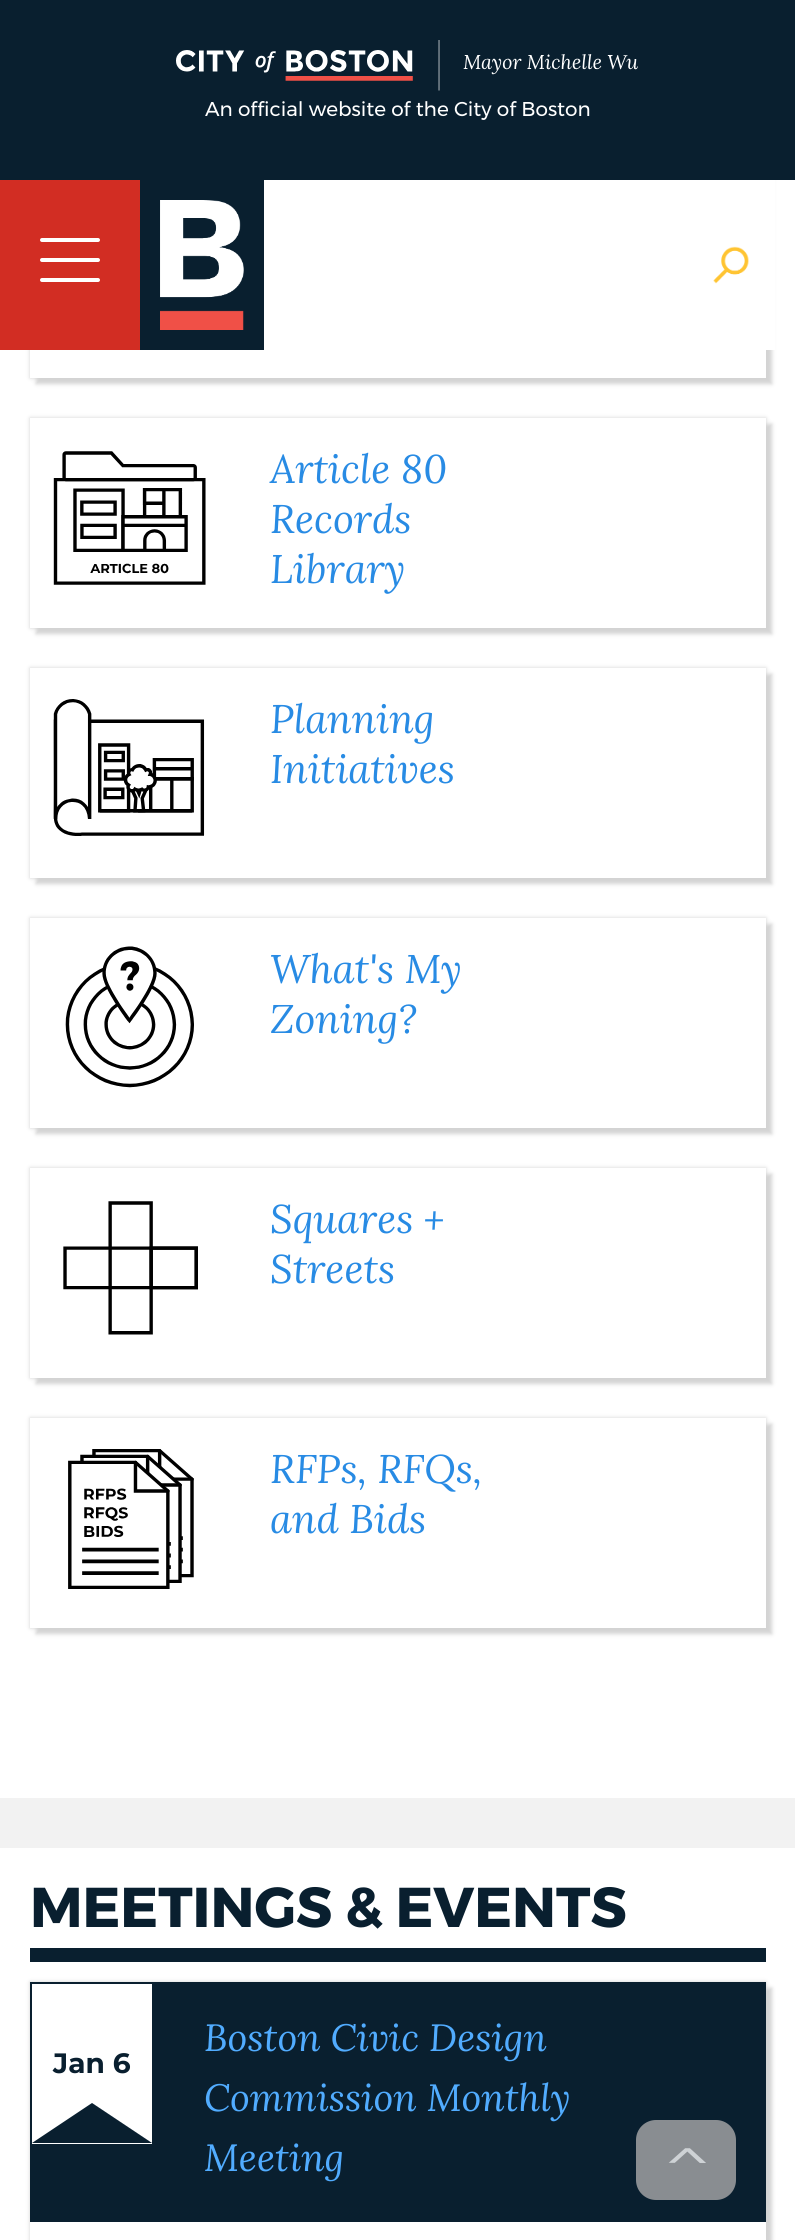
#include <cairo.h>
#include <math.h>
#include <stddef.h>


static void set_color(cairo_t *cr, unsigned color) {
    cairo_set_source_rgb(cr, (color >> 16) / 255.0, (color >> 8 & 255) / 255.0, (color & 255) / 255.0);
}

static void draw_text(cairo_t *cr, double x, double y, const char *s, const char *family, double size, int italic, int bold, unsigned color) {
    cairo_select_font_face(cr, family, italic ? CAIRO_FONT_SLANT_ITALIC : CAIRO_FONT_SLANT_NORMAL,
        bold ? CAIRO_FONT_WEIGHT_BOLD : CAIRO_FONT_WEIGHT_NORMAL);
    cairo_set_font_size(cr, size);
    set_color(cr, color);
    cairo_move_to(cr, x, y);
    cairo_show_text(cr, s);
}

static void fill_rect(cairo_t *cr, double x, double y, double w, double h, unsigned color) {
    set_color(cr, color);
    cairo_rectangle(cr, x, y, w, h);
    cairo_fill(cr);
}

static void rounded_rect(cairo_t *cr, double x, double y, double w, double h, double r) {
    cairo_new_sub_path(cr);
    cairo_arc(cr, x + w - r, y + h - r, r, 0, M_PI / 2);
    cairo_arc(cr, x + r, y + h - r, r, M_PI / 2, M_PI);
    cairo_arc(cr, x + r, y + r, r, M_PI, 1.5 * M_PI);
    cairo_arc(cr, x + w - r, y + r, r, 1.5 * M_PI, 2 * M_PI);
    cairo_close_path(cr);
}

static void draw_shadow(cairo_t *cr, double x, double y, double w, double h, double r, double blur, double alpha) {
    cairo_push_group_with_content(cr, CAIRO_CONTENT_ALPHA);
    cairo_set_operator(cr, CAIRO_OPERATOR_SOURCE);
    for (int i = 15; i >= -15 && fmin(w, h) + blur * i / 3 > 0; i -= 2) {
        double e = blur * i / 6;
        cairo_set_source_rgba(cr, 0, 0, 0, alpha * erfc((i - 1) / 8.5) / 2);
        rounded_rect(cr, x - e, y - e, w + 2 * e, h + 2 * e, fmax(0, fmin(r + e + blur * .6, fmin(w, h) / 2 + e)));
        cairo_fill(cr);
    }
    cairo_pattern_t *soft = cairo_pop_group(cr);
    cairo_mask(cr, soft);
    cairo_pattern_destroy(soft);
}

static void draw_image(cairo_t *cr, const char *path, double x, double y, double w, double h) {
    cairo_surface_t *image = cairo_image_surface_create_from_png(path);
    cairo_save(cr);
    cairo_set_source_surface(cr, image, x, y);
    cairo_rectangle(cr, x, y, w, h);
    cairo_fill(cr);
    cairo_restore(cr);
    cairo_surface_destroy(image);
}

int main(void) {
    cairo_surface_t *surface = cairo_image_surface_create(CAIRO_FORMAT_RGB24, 795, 2240);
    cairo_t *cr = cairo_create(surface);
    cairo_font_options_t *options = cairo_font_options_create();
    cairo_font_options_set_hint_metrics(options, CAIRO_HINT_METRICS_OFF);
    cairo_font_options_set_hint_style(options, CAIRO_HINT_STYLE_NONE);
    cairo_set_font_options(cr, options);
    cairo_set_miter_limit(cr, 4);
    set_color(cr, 0xFFFFFF);
    cairo_paint(cr);
    cairo_save(cr);
    cairo_set_fill_rule(cr, CAIRO_FILL_RULE_EVEN_ODD);
    cairo_new_path(cr);
    cairo_move_to(cr, 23, 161);
    cairo_line_to(cr, 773, 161);
    cairo_line_to(cr, 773, 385);
    cairo_line_to(cr, 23, 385);
    cairo_close_path(cr);
    cairo_move_to(cr, 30, 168);
    cairo_line_to(cr, 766, 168);
    cairo_line_to(cr, 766, 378);
    cairo_line_to(cr, 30, 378);
    cairo_close_path(cr);
    cairo_clip(cr);
    set_color(cr, 0xD3D3D3);
    draw_shadow(cr, 30, 168, 736, 210, 0, 2, 1);
    cairo_restore(cr);
    cairo_save(cr);
    cairo_set_fill_rule(cr, CAIRO_FILL_RULE_EVEN_ODD);
    cairo_new_path(cr);
    cairo_move_to(cr, 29, 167);
    cairo_line_to(cr, 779, 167);
    cairo_line_to(cr, 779, 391);
    cairo_line_to(cr, 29, 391);
    cairo_close_path(cr);
    cairo_move_to(cr, 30, 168);
    cairo_line_to(cr, 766, 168);
    cairo_line_to(cr, 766, 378);
    cairo_line_to(cr, 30, 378);
    cairo_close_path(cr);
    cairo_clip(cr);
    set_color(cr, 0xD3D3D3);
    draw_shadow(cr, 36, 174, 736, 210, 0, 2, 1);
    cairo_restore(cr);
    fill_rect(cr, 0, 0, 795, 180, 0x091F2F);
    draw_image(cr, "assets/img1.png", 176, 40, 462, 51);
    draw_text(cr, 205, 116, "An official website of the City of Boston", "Montserrat", 20, 0, 0, 0xFFFFFF);
    fill_rect(cr, 0, 180, 140, 170, 0xD22D23);
    set_color(cr, 0xFFFFFF);
    rounded_rect(cr, 40, 278, 60, 4, 2);
    cairo_fill(cr);
    rounded_rect(cr, 40, 238, 60, 4, 2);
    cairo_fill(cr);
    rounded_rect(cr, 40, 258, 60, 4, 2);
    cairo_fill(cr);
    fill_rect(cr, 766, 180, 9, 170, 0xFFFFFF);
    fill_rect(cr, 140, 180, 124, 170, 0x091F2F);
    draw_image(cr, "assets/img2.png", 160, 200, 84, 130);
    draw_image(cr, "assets/img3.png", 713, 246, 36, 38);
    fill_rect(cr, 0, 1798, 795, 50, 0xF2F2F2);
    cairo_save(cr);
    cairo_set_fill_rule(cr, CAIRO_FILL_RULE_EVEN_ODD);
    cairo_new_path(cr);
    cairo_move_to(cr, 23, 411);
    cairo_line_to(cr, 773, 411);
    cairo_line_to(cr, 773, 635);
    cairo_line_to(cr, 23, 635);
    cairo_close_path(cr);
    cairo_move_to(cr, 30, 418);
    cairo_line_to(cr, 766, 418);
    cairo_line_to(cr, 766, 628);
    cairo_line_to(cr, 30, 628);
    cairo_close_path(cr);
    cairo_clip(cr);
    set_color(cr, 0xD3D3D3);
    draw_shadow(cr, 30, 418, 736, 210, 0, 2, 1);
    cairo_restore(cr);
    cairo_save(cr);
    cairo_set_fill_rule(cr, CAIRO_FILL_RULE_EVEN_ODD);
    cairo_new_path(cr);
    cairo_move_to(cr, 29, 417);
    cairo_line_to(cr, 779, 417);
    cairo_line_to(cr, 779, 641);
    cairo_line_to(cr, 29, 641);
    cairo_close_path(cr);
    cairo_move_to(cr, 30, 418);
    cairo_line_to(cr, 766, 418);
    cairo_line_to(cr, 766, 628);
    cairo_line_to(cr, 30, 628);
    cairo_close_path(cr);
    cairo_clip(cr);
    set_color(cr, 0xD3D3D3);
    draw_shadow(cr, 36, 424, 736, 210, 0, 2, 1);
    cairo_restore(cr);
    draw_image(cr, "assets/img4.png", 53, 451, 153, 134);
    draw_text(cr, 270, 483, "Article 80", "Lora", 40, 1, 0, 0x288BE4);
    draw_text(cr, 270, 533, "Records", "Lora", 40, 1, 0, 0x288BE4);
    draw_text(cr, 270, 583, "Library", "Lora", 40, 1, 0, 0x288BE4);
    cairo_save(cr);
    cairo_set_fill_rule(cr, CAIRO_FILL_RULE_EVEN_ODD);
    cairo_new_path(cr);
    cairo_move_to(cr, 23, 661);
    cairo_line_to(cr, 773, 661);
    cairo_line_to(cr, 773, 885);
    cairo_line_to(cr, 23, 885);
    cairo_close_path(cr);
    cairo_move_to(cr, 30, 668);
    cairo_line_to(cr, 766, 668);
    cairo_line_to(cr, 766, 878);
    cairo_line_to(cr, 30, 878);
    cairo_close_path(cr);
    cairo_clip(cr);
    set_color(cr, 0xD3D3D3);
    draw_shadow(cr, 30, 668, 736, 210, 0, 2, 1);
    cairo_restore(cr);
    cairo_save(cr);
    cairo_set_fill_rule(cr, CAIRO_FILL_RULE_EVEN_ODD);
    cairo_new_path(cr);
    cairo_move_to(cr, 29, 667);
    cairo_line_to(cr, 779, 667);
    cairo_line_to(cr, 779, 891);
    cairo_line_to(cr, 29, 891);
    cairo_close_path(cr);
    cairo_move_to(cr, 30, 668);
    cairo_line_to(cr, 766, 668);
    cairo_line_to(cr, 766, 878);
    cairo_line_to(cr, 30, 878);
    cairo_close_path(cr);
    cairo_clip(cr);
    set_color(cr, 0xD3D3D3);
    draw_shadow(cr, 36, 674, 736, 210, 0, 2, 1);
    cairo_restore(cr);
    draw_image(cr, "assets/img5.png", 53, 699, 152, 137);
    draw_text(cr, 270, 733, "Planning", "Lora", 40, 1, 0, 0x288BE4);
    draw_text(cr, 270, 783, "Initiatives", "Lora", 40, 1, 0, 0x288BE4);
    cairo_save(cr);
    cairo_set_fill_rule(cr, CAIRO_FILL_RULE_EVEN_ODD);
    cairo_new_path(cr);
    cairo_move_to(cr, 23, 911);
    cairo_line_to(cr, 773, 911);
    cairo_line_to(cr, 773, 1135);
    cairo_line_to(cr, 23, 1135);
    cairo_close_path(cr);
    cairo_move_to(cr, 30, 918);
    cairo_line_to(cr, 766, 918);
    cairo_line_to(cr, 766, 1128);
    cairo_line_to(cr, 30, 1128);
    cairo_close_path(cr);
    cairo_clip(cr);
    set_color(cr, 0xD3D3D3);
    draw_shadow(cr, 30, 918, 736, 210, 0, 2, 1);
    cairo_restore(cr);
    cairo_save(cr);
    cairo_set_fill_rule(cr, CAIRO_FILL_RULE_EVEN_ODD);
    cairo_new_path(cr);
    cairo_move_to(cr, 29, 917);
    cairo_line_to(cr, 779, 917);
    cairo_line_to(cr, 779, 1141);
    cairo_line_to(cr, 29, 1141);
    cairo_close_path(cr);
    cairo_move_to(cr, 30, 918);
    cairo_line_to(cr, 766, 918);
    cairo_line_to(cr, 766, 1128);
    cairo_line_to(cr, 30, 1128);
    cairo_close_path(cr);
    cairo_clip(cr);
    set_color(cr, 0xD3D3D3);
    draw_shadow(cr, 36, 924, 736, 210, 0, 2, 1);
    cairo_restore(cr);
    draw_image(cr, "assets/img6.png", 65, 946, 129, 142);
    draw_text(cr, 270, 983, "What's My", "Lora", 40, 1, 0, 0x288BE4);
    draw_text(cr, 270, 1033, "Zoning?", "Lora", 40, 1, 0, 0x288BE4);
    cairo_save(cr);
    cairo_set_fill_rule(cr, CAIRO_FILL_RULE_EVEN_ODD);
    cairo_new_path(cr);
    cairo_move_to(cr, 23, 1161);
    cairo_line_to(cr, 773, 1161);
    cairo_line_to(cr, 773, 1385);
    cairo_line_to(cr, 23, 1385);
    cairo_close_path(cr);
    cairo_move_to(cr, 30, 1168);
    cairo_line_to(cr, 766, 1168);
    cairo_line_to(cr, 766, 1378);
    cairo_line_to(cr, 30, 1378);
    cairo_close_path(cr);
    cairo_clip(cr);
    set_color(cr, 0xD3D3D3);
    draw_shadow(cr, 30, 1168, 736, 210, 0, 2, 1);
    cairo_restore(cr);
    cairo_save(cr);
    cairo_set_fill_rule(cr, CAIRO_FILL_RULE_EVEN_ODD);
    cairo_new_path(cr);
    cairo_move_to(cr, 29, 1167);
    cairo_line_to(cr, 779, 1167);
    cairo_line_to(cr, 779, 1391);
    cairo_line_to(cr, 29, 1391);
    cairo_close_path(cr);
    cairo_move_to(cr, 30, 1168);
    cairo_line_to(cr, 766, 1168);
    cairo_line_to(cr, 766, 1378);
    cairo_line_to(cr, 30, 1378);
    cairo_close_path(cr);
    cairo_clip(cr);
    set_color(cr, 0xD3D3D3);
    draw_shadow(cr, 36, 1174, 736, 210, 0, 2, 1);
    cairo_restore(cr);
    draw_image(cr, "assets/img7.png", 63, 1201, 135, 134);
    draw_text(cr, 270, 1233, "Squares +", "Lora", 40, 1, 0, 0x288BE4);
    draw_text(cr, 270, 1283, "Streets", "Lora", 40, 1, 0, 0x288BE4);
    cairo_save(cr);
    cairo_set_fill_rule(cr, CAIRO_FILL_RULE_EVEN_ODD);
    cairo_new_path(cr);
    cairo_move_to(cr, 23, 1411);
    cairo_line_to(cr, 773, 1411);
    cairo_line_to(cr, 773, 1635);
    cairo_line_to(cr, 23, 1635);
    cairo_close_path(cr);
    cairo_move_to(cr, 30, 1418);
    cairo_line_to(cr, 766, 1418);
    cairo_line_to(cr, 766, 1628);
    cairo_line_to(cr, 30, 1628);
    cairo_close_path(cr);
    cairo_clip(cr);
    set_color(cr, 0xD3D3D3);
    draw_shadow(cr, 30, 1418, 736, 210, 0, 2, 1);
    cairo_restore(cr);
    cairo_save(cr);
    cairo_set_fill_rule(cr, CAIRO_FILL_RULE_EVEN_ODD);
    cairo_new_path(cr);
    cairo_move_to(cr, 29, 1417);
    cairo_line_to(cr, 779, 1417);
    cairo_line_to(cr, 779, 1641);
    cairo_line_to(cr, 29, 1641);
    cairo_close_path(cr);
    cairo_move_to(cr, 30, 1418);
    cairo_line_to(cr, 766, 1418);
    cairo_line_to(cr, 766, 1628);
    cairo_line_to(cr, 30, 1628);
    cairo_close_path(cr);
    cairo_clip(cr);
    set_color(cr, 0xD3D3D3);
    draw_shadow(cr, 36, 1424, 736, 210, 0, 2, 1);
    cairo_restore(cr);
    draw_image(cr, "assets/img8.png", 68, 1449, 126, 140);
    draw_text(cr, 270, 1483, "RFPs, RFQs,", "Lora", 40, 1, 0, 0x288BE4);
    draw_text(cr, 270, 1533, "and Bids", "Lora", 40, 1, 0, 0x288BE4);
    fill_rect(cr, 30, 1948, 736, 14, 0x091F2F);
    draw_text(cr, 30, 1927, "MEETINGS & EVENTS", "Montserrat", 56, 0, 1, 0x091F2F);
    cairo_save(cr);
    cairo_set_fill_rule(cr, CAIRO_FILL_RULE_EVEN_ODD);
    cairo_new_path(cr);
    cairo_move_to(cr, 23, 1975);
    cairo_line_to(cr, 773, 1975);
    cairo_line_to(cr, 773, 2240);
    cairo_line_to(cr, 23, 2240);
    cairo_close_path(cr);
    cairo_move_to(cr, 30, 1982);
    cairo_line_to(cr, 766, 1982);
    cairo_line_to(cr, 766, 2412);
    cairo_line_to(cr, 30, 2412);
    cairo_close_path(cr);
    cairo_clip(cr);
    set_color(cr, 0xD3D3D3);
    draw_shadow(cr, 30, 1982, 736, 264, 0, 2, 1);
    cairo_restore(cr);
    cairo_save(cr);
    cairo_rectangle(cr, 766, 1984, 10, 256);
    cairo_clip(cr);
    set_color(cr, 0xD3D3D3);
    draw_shadow(cr, 36, 1988, 736, 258, 0, 2, 1);
    cairo_restore(cr);
    fill_rect(cr, 30, 1982, 736, 240, 0x091F2F);
    fill_rect(cr, 32, 1984, 120, 160, 0xFFFFFF);
    draw_text(cr, 53, 2073, "Jan 6", "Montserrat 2", 28, 0, 1, 0x091F2F);
    cairo_new_path(cr);
    cairo_move_to(cr, 152, 2143);
    cairo_line_to(cr, 32, 2143);
    cairo_line_to(cr, 92, 2103);
    cairo_close_path(cr);
    cairo_fill(cr);
    draw_text(cr, 204, 2051, "Boston Civic Design", "Lora", 38, 1, 0, 0x51ACFF);
    draw_text(cr, 204, 2111, "Commission Monthly", "Lora", 38, 1, 0, 0x51ACFF);
    draw_text(cr, 204, 2171, "Meeting", "Lora", 38, 1, 0, 0x51ACFF);
    set_color(cr, 0x898D91);
    rounded_rect(cr, 636, 2120, 100, 80, 20);
    cairo_fill(cr);
    draw_text(cr, 667, 2184, "^", "Lora", 48, 0, 1, 0xCED2D5);
    cairo_surface_write_to_png(surface, "output.png");
    cairo_font_options_destroy(options);
    cairo_destroy(cr);
    cairo_surface_destroy(surface);
    return 0;
}
